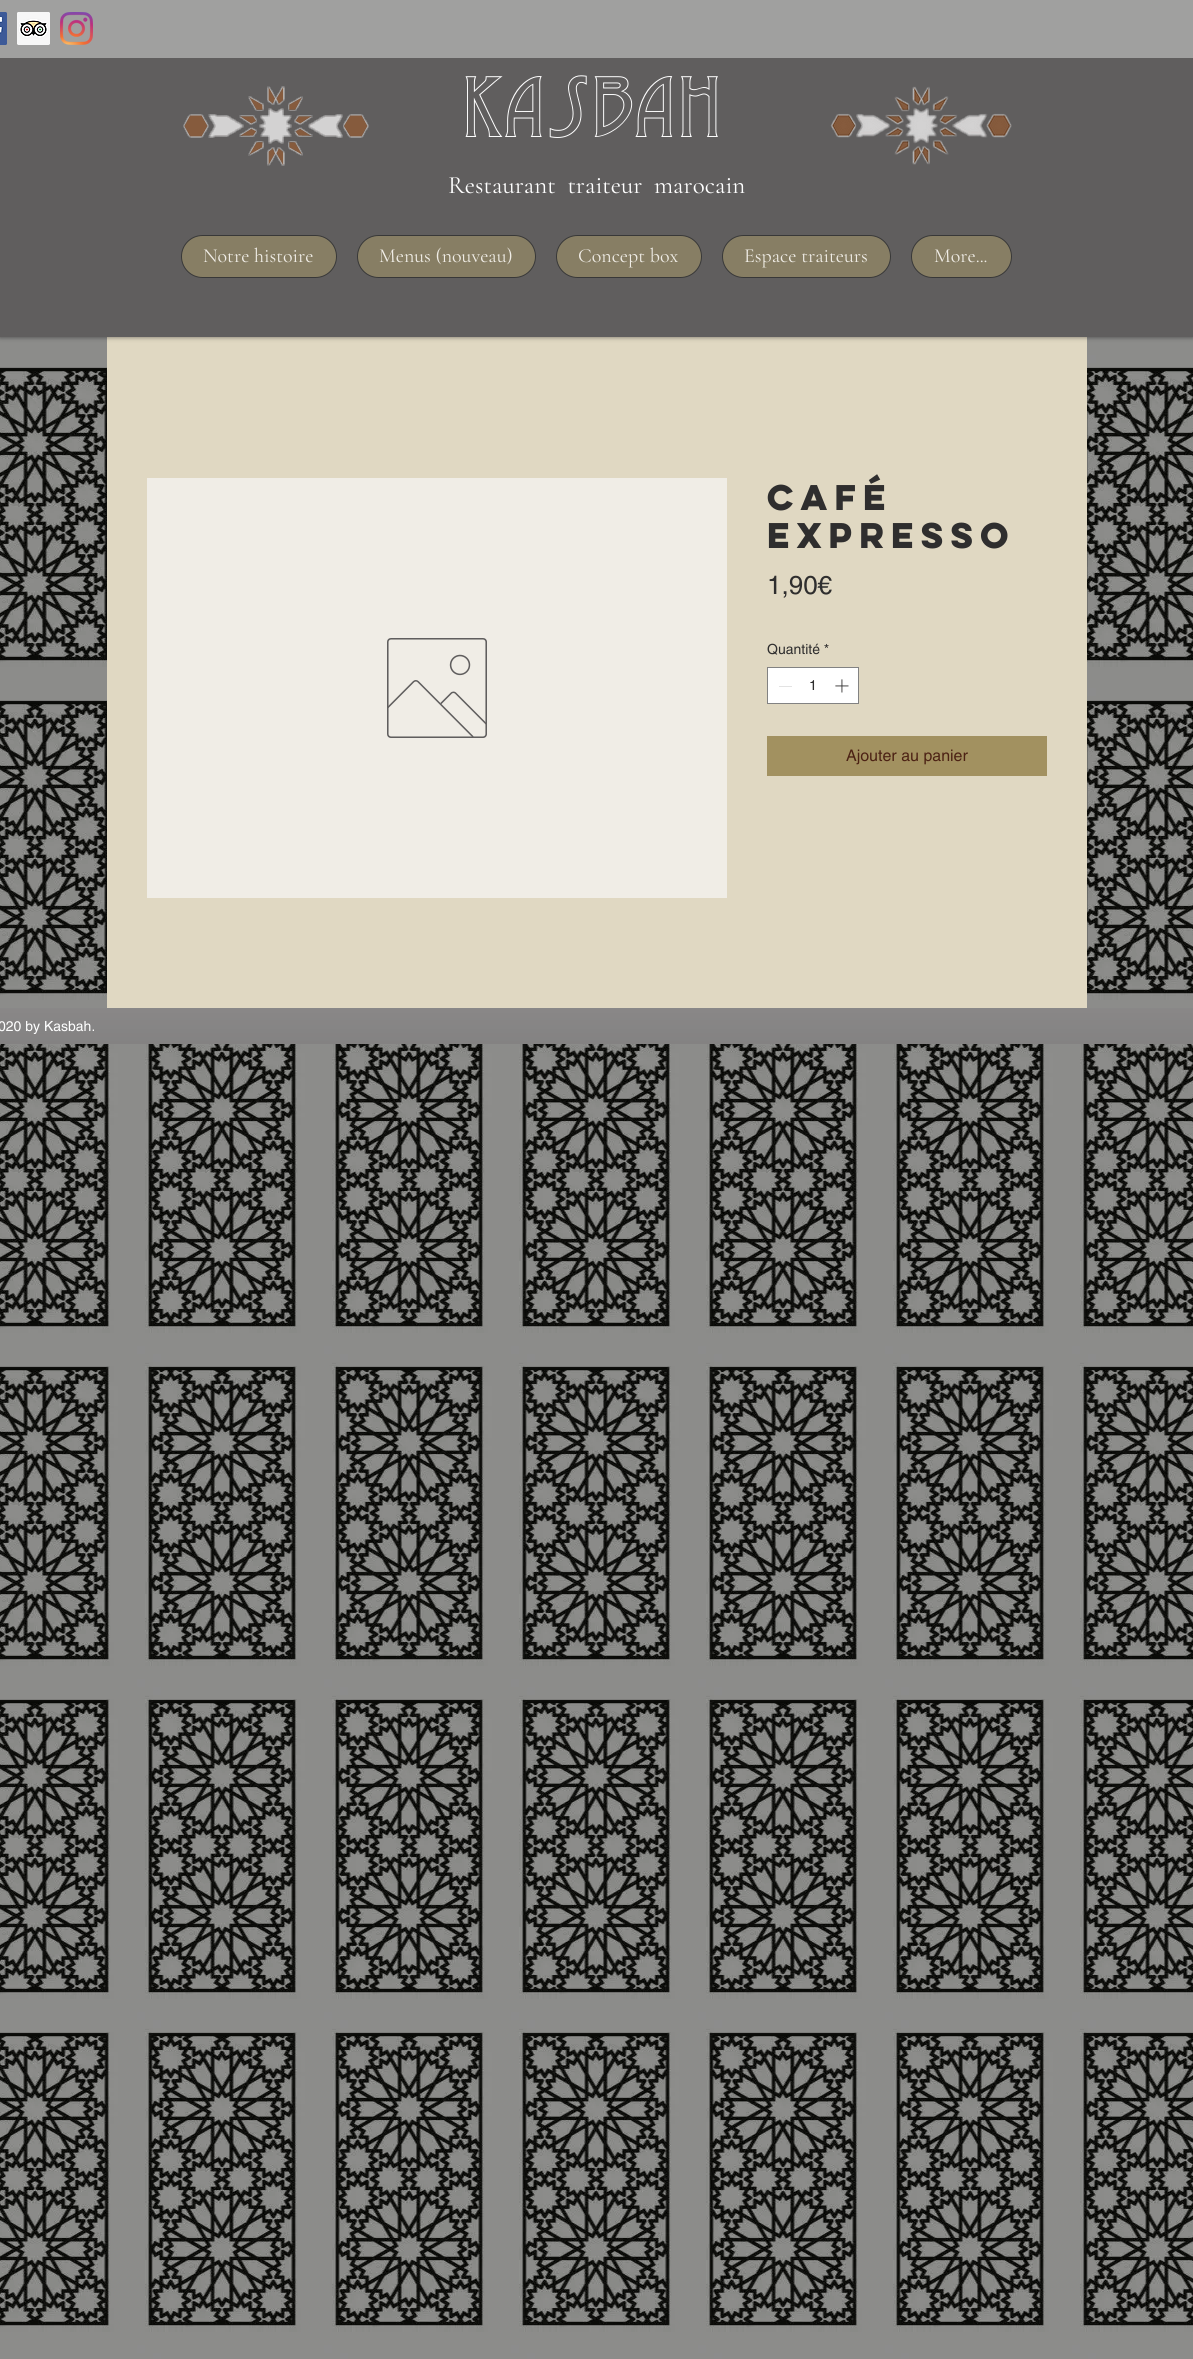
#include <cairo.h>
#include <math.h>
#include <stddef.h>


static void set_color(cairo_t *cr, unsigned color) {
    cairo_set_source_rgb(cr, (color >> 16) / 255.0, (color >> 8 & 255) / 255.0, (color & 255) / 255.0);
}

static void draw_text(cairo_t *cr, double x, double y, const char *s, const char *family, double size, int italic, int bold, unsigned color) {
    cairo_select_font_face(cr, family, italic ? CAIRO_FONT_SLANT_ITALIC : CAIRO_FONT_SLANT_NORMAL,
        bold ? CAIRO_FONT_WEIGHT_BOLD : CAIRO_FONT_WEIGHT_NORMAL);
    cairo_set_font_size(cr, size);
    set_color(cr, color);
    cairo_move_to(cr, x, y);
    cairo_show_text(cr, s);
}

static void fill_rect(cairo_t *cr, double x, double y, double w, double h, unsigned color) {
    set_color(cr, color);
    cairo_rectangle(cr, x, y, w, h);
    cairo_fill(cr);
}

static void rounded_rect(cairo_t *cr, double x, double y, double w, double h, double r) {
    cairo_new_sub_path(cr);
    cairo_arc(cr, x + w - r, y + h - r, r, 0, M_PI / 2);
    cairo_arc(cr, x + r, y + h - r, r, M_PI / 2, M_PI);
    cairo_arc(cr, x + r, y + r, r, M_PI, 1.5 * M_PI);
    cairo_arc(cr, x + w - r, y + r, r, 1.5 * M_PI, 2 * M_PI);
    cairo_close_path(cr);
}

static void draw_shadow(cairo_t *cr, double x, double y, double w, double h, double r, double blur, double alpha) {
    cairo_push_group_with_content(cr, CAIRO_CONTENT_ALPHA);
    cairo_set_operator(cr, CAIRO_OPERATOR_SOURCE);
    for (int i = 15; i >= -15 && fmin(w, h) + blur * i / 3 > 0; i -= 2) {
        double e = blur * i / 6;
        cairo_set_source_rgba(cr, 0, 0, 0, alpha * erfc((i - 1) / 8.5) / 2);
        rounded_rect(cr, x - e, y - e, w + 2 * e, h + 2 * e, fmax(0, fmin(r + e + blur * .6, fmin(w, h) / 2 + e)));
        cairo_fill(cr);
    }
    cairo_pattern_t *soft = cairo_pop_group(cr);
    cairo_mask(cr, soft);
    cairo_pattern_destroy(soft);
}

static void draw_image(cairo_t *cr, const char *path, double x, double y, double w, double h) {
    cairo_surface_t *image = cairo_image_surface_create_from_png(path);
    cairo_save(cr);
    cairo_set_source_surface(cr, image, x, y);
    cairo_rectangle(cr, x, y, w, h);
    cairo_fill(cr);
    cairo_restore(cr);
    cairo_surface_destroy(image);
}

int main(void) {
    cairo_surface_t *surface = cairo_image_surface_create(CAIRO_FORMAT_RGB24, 1193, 2359);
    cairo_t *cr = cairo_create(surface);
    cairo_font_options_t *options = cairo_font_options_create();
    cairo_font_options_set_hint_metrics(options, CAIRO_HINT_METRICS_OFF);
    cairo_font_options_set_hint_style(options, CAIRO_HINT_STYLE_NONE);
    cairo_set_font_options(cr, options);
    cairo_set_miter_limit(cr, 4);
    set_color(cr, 0xFFFFFF);
    cairo_paint(cr);
    draw_image(cr, "assets/img9.png", 0, 337, 1193, 2022);
    fill_rect(cr, 107, 337, 980, 671, 0xE0D8C2);
    set_color(cr, 0x000000);
    draw_shadow(cr, 0, 0, 1193, 337, 0, 2.5, 0.5);
    fill_rect(cr, 0, 58, 1193, 279, 0x605E5E);
    fill_rect(cr, 0, 0, 1193, 58, 0xA0A09F);
    draw_image(cr, "assets/img1.png", 0, 12, 7, 33);
    draw_image(cr, "assets/img2.png", 17, 12, 33, 33);
    draw_image(cr, "assets/img3.png", 60, 12, 33, 33);
    draw_image(cr, "assets/img4.png", 183, 86, 186, 80);
    draw_text(cr, 461, 137, "Kasbah", "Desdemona", 83, 0, 0, 0xFFFFFF);
    draw_image(cr, "assets/img5.png", 830, 86, 182, 79);
    draw_text(cr, 448, 193, "Restaurant  traiteur  marocain", "Cormorant Garamond", 25, 0, 0, 0xFFFFFF);
    set_color(cr, 0x877E64);
    rounded_rect(cr, 181.5, 235.5, 155, 42, 21);
    cairo_fill_preserve(cr);
    set_color(cr, 0x383838);
    cairo_set_line_width(cr, 1);
    cairo_stroke(cr);
    draw_text(cr, 203, 262, "Notre histoire", "Cormorant Garamond", 20, 0, 0, 0xF0EDE6);
    set_color(cr, 0x877E64);
    rounded_rect(cr, 357.5, 235.5, 178, 42, 21);
    cairo_fill_preserve(cr);
    set_color(cr, 0x383838);
    cairo_stroke(cr);
    draw_text(cr, 379, 262, "Menus (nouveau)", "Cormorant Garamond", 20, 0, 0, 0xF0EDE6);
    set_color(cr, 0x877E64);
    rounded_rect(cr, 556.5, 235.5, 145, 42, 21);
    cairo_fill_preserve(cr);
    set_color(cr, 0x383838);
    cairo_stroke(cr);
    draw_text(cr, 578, 262, "Concept box", "Cormorant Garamond", 20, 0, 0, 0xF0EDE6);
    set_color(cr, 0x877E64);
    rounded_rect(cr, 722.5, 235.5, 168, 42, 21);
    cairo_fill_preserve(cr);
    set_color(cr, 0x383838);
    cairo_stroke(cr);
    draw_text(cr, 744, 262, "Espace traiteurs", "Cormorant Garamond", 20, 0, 0, 0xF0EDE6);
    set_color(cr, 0x877E64);
    rounded_rect(cr, 911.5, 235.5, 100, 42, 21);
    cairo_fill_preserve(cr);
    set_color(cr, 0x383838);
    cairo_stroke(cr);
    draw_text(cr, 934, 262, "More...", "Cormorant Garamond", 20, 0, 0, 0xF0EDE6);
    fill_rect(cr, 147, 478, 580, 420, 0xF0EDE6);
    draw_image(cr, "assets/img6.png", 387, 638, 100, 100);
    draw_text(cr, 767, 510, "Café", "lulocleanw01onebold", 32, 0, 1, 0x2F2E2E);
    draw_text(cr, 767, 548, "Expresso", "lulocleanw01onebold", 32, 0, 1, 0x2F2E2E);
    draw_text(cr, 767, 594, "1,90€", "helvetica", 26, 0, 0, 0x2F2E2E);
    draw_text(cr, 767, 654, "Quantité *", "helvetica", 14, 0, 0, 0x2F2E2E);
    set_color(cr, 0xFFFFFF);
    cairo_rectangle(cr, 767.5, 667.5, 91, 36);
    cairo_fill_preserve(cr);
    set_color(cr, 0x828282);
    cairo_stroke(cr);
    fill_rect(cr, 779, 686, 13, 1, 0xE3E3E3);
    draw_text(cr, 809, 690, "1", "helvetica", 14, 0, 0, 0x2F2E2E);
    draw_image(cr, "assets/img7.png", 835, 679, 14, 14);
    fill_rect(cr, 767, 736, 280, 40, 0xA29160);
    draw_text(cr, 846, 761, "Ajouter au panier", "helvetica", 16, 0, 0, 0x4C2214);
    fill_rect(cr, 0, 1008, 1193, 36, 0x605E5E);
    draw_image(cr, "assets/img8.png", 0, 1008, 1193, 36);
    draw_text(cr, -2, 1031, "020 by Kasbah.", "helvetica", 14, 0, 0, 0xFFFFFF);
    cairo_surface_write_to_png(surface, "output.png");
    cairo_font_options_destroy(options);
    cairo_destroy(cr);
    cairo_surface_destroy(surface);
    return 0;
}
